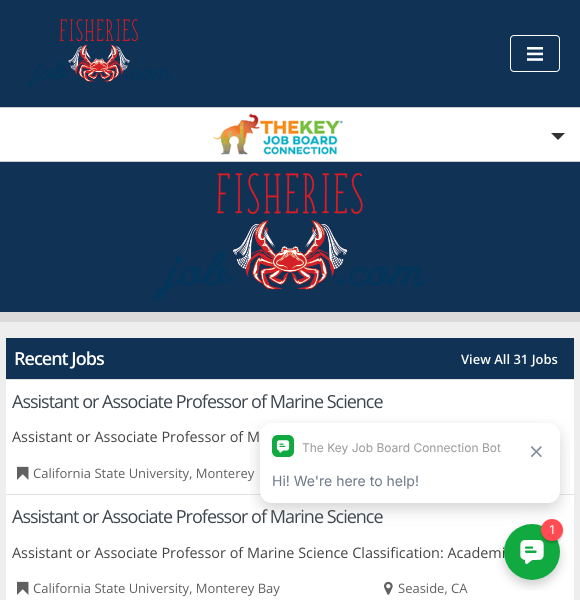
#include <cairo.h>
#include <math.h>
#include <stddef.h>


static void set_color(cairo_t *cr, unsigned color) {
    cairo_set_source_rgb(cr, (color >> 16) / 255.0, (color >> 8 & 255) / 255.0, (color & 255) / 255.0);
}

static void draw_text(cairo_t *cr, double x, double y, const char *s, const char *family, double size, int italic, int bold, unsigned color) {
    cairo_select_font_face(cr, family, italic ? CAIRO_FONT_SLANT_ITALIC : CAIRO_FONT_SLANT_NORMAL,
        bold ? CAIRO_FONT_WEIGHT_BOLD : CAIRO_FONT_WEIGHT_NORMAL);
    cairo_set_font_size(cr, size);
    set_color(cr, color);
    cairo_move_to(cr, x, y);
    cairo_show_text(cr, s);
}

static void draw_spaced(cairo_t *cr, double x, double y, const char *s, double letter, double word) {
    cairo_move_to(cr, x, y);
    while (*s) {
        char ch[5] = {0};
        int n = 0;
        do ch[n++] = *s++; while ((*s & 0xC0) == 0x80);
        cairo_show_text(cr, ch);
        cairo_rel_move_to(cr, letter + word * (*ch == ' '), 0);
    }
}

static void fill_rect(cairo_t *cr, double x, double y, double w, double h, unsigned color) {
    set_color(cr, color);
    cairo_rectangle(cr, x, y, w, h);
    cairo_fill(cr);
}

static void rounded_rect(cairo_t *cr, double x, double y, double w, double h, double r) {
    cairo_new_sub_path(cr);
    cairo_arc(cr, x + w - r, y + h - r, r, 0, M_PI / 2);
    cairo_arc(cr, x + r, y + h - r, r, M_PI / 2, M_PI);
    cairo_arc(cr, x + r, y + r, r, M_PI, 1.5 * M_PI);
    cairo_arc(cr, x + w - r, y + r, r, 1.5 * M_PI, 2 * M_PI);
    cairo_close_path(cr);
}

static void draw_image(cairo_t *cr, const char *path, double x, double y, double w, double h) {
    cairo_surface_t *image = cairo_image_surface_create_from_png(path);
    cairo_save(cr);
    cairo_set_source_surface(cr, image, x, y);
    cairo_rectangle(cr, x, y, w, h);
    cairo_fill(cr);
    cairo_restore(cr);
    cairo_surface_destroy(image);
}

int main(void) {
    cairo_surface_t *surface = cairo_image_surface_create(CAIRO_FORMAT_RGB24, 580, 600);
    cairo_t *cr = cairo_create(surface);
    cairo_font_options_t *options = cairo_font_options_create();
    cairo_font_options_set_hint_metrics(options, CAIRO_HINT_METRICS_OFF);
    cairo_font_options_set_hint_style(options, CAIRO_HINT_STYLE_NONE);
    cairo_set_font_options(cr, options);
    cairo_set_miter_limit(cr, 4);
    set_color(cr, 0x0F3255);
    cairo_paint(cr);
    fill_rect(cr, 0, 312, 580, 10, 0xDBDBDB);
    draw_image(cr, "assets/img1.png", 26, 19, 147, 68);
    rounded_rect(cr, 510.5, 35.5, 49, 36, 3.5);
    set_color(cr, 0xFFFFFF);
    cairo_set_line_width(cr, 1);
    cairo_stroke(cr);
    draw_image(cr, "assets/img2.png", 527, 47, 16, 14);
    fill_rect(cr, 0, 108, 580, 53, 0xFFFFFF);
    fill_rect(cr, 0, 107, 580, 1, 0xCCCCCC);
    fill_rect(cr, 0, 161, 580, 1, 0xCCCCCC);
    draw_image(cr, "assets/img3.png", 213, 113, 130, 42);
    set_color(cr, 0x333333);
    cairo_new_path(cr);
    cairo_move_to(cr, 551, 133);
    cairo_line_to(cr, 565, 133);
    cairo_line_to(cr, 558, 140);
    cairo_close_path(cr);
    cairo_fill(cr);
    draw_image(cr, "assets/img4.png", 153, 173, 275, 127);
    fill_rect(cr, 0, 322, 580, 278, 0xEEEEEE);
    fill_rect(cr, 6, 380, 568, 220, 0xFFFFFF);
    fill_rect(cr, 6, 338, 568, 41, 0x0F3255);
    cairo_select_font_face(cr, "Open Sans SemiBold", CAIRO_FONT_SLANT_NORMAL, CAIRO_FONT_WEIGHT_NORMAL);
    cairo_set_font_size(cr, 18);
    set_color(cr, 0xFFFFFF);
    draw_spaced(cr, 14, 365, "Recent Jobs", -1, 0);
    draw_text(cr, 461, 364, "View All 31 Jobs", "Open Sans SemiBold", 13, 0, 0, 0xFFFFFF);
    fill_rect(cr, 6, 379, 568, 1, 0xE2E2E2);
    cairo_select_font_face(cr, "Open Sans", CAIRO_FONT_SLANT_NORMAL, CAIRO_FONT_WEIGHT_NORMAL);
    cairo_set_font_size(cr, 18);
    set_color(cr, 0x3D454C);
    draw_spaced(cr, 12, 408, "Assistant or Associate Professor of Marine Science", -1, 0);
    draw_text(cr, 12, 442, "Assistant or Associate Professor of M", "Open Sans", 14.4, 0, 0, 0x444444);
    draw_image(cr, "assets/img5.png", 17, 466, 12, 14);
    draw_text(cr, 33, 478, "California State University, Monterey", "Open Sans", 13, 0, 0, 0x606060);
    fill_rect(cr, 6, 494, 568, 1, 0xE2E2E2);
    cairo_set_font_size(cr, 18);
    set_color(cr, 0x3D454C);
    draw_spaced(cr, 12, 523, "Assistant or Associate Professor of Marine Science", -1, 0);
    draw_text(cr, 12, 558, "Assistant or Associate Professor of Marine Science Classification: Academi", "Open Sans", 14.4, 0, 0, 0x444444);
    draw_image(cr, "assets/img5.png", 17, 581, 12, 14);
    draw_text(cr, 33, 593, "California State University, Monterey Bay", "Open Sans", 13, 0, 0, 0x606060);
    draw_image(cr, "assets/img6.png", 384, 581, 9, 14);
    draw_text(cr, 398, 593, "Seaside, CA", "Open Sans", 13, 0, 0, 0x606060);
    draw_image(cr, "assets/img7.png", 250, 419, 320, 172);
    cairo_surface_write_to_png(surface, "output.png");
    cairo_font_options_destroy(options);
    cairo_destroy(cr);
    cairo_surface_destroy(surface);
    return 0;
}
